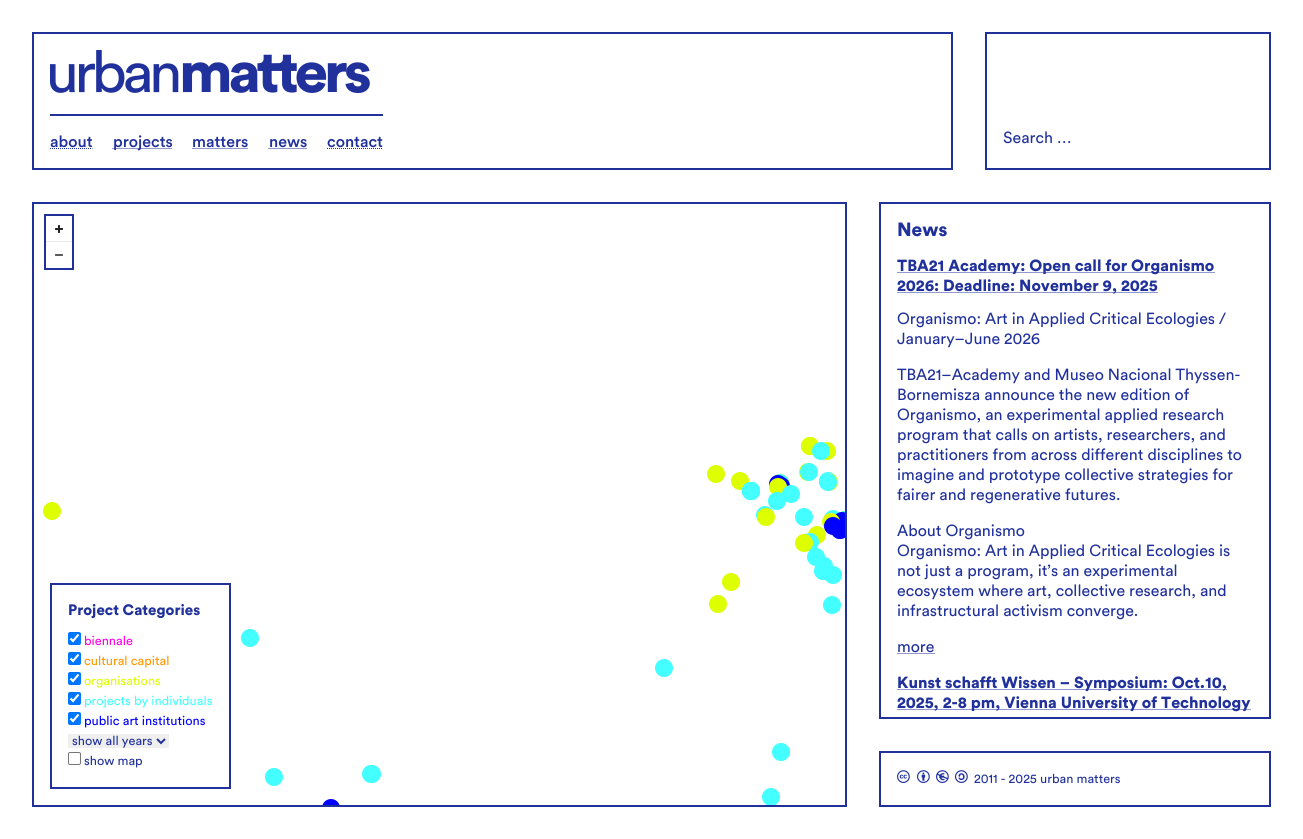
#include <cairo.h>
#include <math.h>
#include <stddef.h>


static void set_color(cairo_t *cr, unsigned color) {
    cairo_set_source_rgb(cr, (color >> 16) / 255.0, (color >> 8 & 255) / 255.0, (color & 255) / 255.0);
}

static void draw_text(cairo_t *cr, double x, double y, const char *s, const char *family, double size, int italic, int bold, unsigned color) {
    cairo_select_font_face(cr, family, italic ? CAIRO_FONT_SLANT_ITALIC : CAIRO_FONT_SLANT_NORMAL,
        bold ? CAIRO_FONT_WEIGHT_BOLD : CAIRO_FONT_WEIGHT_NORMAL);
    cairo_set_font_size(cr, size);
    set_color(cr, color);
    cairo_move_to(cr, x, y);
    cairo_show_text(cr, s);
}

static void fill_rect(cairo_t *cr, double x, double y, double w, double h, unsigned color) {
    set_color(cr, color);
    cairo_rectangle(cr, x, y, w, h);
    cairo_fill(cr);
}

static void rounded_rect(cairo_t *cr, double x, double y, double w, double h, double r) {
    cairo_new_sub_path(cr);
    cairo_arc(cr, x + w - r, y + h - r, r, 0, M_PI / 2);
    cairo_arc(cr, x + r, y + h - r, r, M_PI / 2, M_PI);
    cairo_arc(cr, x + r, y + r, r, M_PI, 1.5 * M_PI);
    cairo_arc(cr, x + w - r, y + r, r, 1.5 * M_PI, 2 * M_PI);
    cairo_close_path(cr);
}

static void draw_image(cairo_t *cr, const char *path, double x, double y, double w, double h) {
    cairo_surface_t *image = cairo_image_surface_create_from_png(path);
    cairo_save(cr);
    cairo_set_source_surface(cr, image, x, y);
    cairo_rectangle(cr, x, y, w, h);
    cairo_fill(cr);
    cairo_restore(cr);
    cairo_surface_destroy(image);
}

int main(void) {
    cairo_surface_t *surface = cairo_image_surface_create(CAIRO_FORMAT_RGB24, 1303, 839);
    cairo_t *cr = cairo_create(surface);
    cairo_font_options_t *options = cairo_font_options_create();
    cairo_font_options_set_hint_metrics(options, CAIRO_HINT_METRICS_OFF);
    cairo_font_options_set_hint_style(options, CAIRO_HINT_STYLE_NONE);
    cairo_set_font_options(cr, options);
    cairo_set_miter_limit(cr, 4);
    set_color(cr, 0xFFFFFF);
    cairo_paint(cr);
    cairo_rectangle(cr, 33, 33, 919, 136);
    set_color(cr, 0x21319C);
    cairo_stroke(cr);
    draw_image(cr, "assets/img1.png", 50, 50, 320, 43);
    fill_rect(cr, 50, 114, 333, 2, 0x21319C);
    draw_text(cr, 50, 147, "about", "Circular Medium", 16, 0, 0, 0x21319C);
    cairo_new_path(cr);
    cairo_move_to(cr, 50, 148.5);
    cairo_line_to(cr, 92.5, 148.5);
    cairo_set_line_width(cr, 1);
    cairo_set_dash(cr, (double[]){1, 1}, 2, 0);
    cairo_stroke(cr);
    cairo_new_path(cr);
    cairo_move_to(cr, 112.5, 148.5);
    cairo_line_to(cr, 172.5, 148.5);
    cairo_stroke(cr);
    draw_text(cr, 113, 147, "projects", "Circular Medium", 16, 0, 0, 0x21319C);
    draw_text(cr, 192, 147, "matters", "Circular Medium", 16, 0, 0, 0x21319C);
    cairo_new_path(cr);
    cairo_move_to(cr, 192.5, 148.5);
    cairo_line_to(cr, 248.5, 148.5);
    cairo_stroke(cr);
    draw_text(cr, 269, 147, "news", "Circular Medium", 16, 0, 0, 0x21319C);
    cairo_new_path(cr);
    cairo_move_to(cr, 268.5, 148.5);
    cairo_line_to(cr, 307, 148.5);
    cairo_stroke(cr);
    draw_text(cr, 327, 147, "contact", "Circular Medium", 16, 0, 0, 0x21319C);
    cairo_new_path(cr);
    cairo_move_to(cr, 327, 148.5);
    cairo_line_to(cr, 383, 148.5);
    cairo_stroke(cr);
    cairo_rectangle(cr, 986, 33, 284, 136);
    cairo_set_line_width(cr, 2);
    cairo_set_dash(cr, NULL, 0, 0);
    cairo_stroke(cr);
    draw_text(cr, 1003, 143, "Search …", "Circular", 16, 0, 0, 0x21319C);
    cairo_rectangle(cr, 33, 203, 813, 603);
    cairo_stroke(cr);
    cairo_rectangle(cr, 45, 215, 28, 54);
    cairo_stroke(cr);
    draw_image(cr, "assets/img2.png", 55, 225, 8, 8);
    fill_rect(cr, 46, 241, 26, 1, 0xE9E9E9);
    draw_image(cr, "assets/img3.png", 55, 254, 8, 2);
    draw_image(cr, "assets/img4.png", 801, 437, 18, 18);
    draw_image(cr, "assets/img5.png", 801, 437, 18, 18);
    draw_image(cr, "assets/img7.png", 823, 442, 13, 18);
    draw_image(cr, "assets/img6.png", 812, 442, 18, 18);
    draw_image(cr, "assets/img8.png", 799, 463, 17, 18);
    draw_image(cr, "assets/img4.png", 707, 465, 18, 18);
    draw_image(cr, "assets/img4.png", 731, 472, 18, 18);
    draw_image(cr, "assets/img9.png", 800, 463, 18, 18);
    draw_image(cr, "assets/img10.png", 819, 472, 18, 17);
    draw_image(cr, "assets/img13.png", 821, 473, 17, 18);
    draw_image(cr, "assets/img11.png", 819, 473, 18, 18);
    draw_image(cr, "assets/img12.png", 772, 474, 17, 8);
    draw_image(cr, "assets/img14.png", 772, 474, 17, 8);
    draw_image(cr, "assets/img15.png", 769, 475, 17, 13);
    draw_image(cr, "assets/img16.png", 775, 477, 15, 18);
    draw_image(cr, "assets/img17.png", 742, 482, 18, 18);
    draw_image(cr, "assets/img18.png", 769, 478, 18, 17);
    draw_image(cr, "assets/img19.png", 742, 482, 18, 18);
    draw_image(cr, "assets/img20.png", 742, 482, 18, 18);
    draw_image(cr, "assets/img4.png", 43, 502, 18, 18);
    draw_image(cr, "assets/img21.png", 742, 482, 18, 18);
    draw_image(cr, "assets/img24.png", 782, 485, 18, 18);
    draw_image(cr, "assets/img23.png", 768, 492, 18, 18);
    draw_image(cr, "assets/img22.png", 756, 506, 18, 17);
    draw_image(cr, "assets/img25.png", 757, 508, 18, 18);
    draw_image(cr, "assets/img26.png", 795, 508, 18, 18);
    draw_image(cr, "assets/img27.png", 824, 510, 16, 7);
    draw_image(cr, "assets/img28.png", 839, 511, 6, 2);
    draw_image(cr, "assets/img29.png", 839, 511, 6, 2);
    draw_image(cr, "assets/img30.png", 839, 511, 6, 2);
    draw_image(cr, "assets/img31.png", 839, 511, 6, 2);
    draw_image(cr, "assets/img34.png", 824, 513, 14, 4);
    draw_image(cr, "assets/img32.png", 835, 512, 10, 17);
    draw_image(cr, "assets/img33.png", 822, 513, 18, 16);
    draw_image(cr, "assets/img36.png", 824, 517, 17, 18);
    draw_image(cr, "assets/img35.png", 808, 526, 18, 18);
    draw_image(cr, "assets/img37.png", 804, 533, 15, 18);
    draw_image(cr, "assets/img38.png", 832, 529, 13, 10);
    draw_image(cr, "assets/img39.png", 795, 534, 18, 18);
    draw_image(cr, "assets/img40.png", 832, 535, 13, 4);
    draw_image(cr, "assets/img41.png", 807, 548, 18, 18);
    draw_image(cr, "assets/img42.png", 815, 557, 18, 10);
    draw_image(cr, "assets/img4.png", 722, 573, 18, 18);
    draw_image(cr, "assets/img43.png", 814, 566, 17, 14);
    draw_image(cr, "assets/img44.png", 825, 566, 17, 18);
    draw_image(cr, "assets/img4.png", 709, 595, 18, 18);
    draw_image(cr, "assets/img26.png", 823, 596, 18, 18);
    draw_image(cr, "assets/img26.png", 241, 629, 18, 18);
    draw_image(cr, "assets/img26.png", 655, 659, 18, 18);
    draw_image(cr, "assets/img26.png", 772, 743, 18, 18);
    draw_image(cr, "assets/img46.png", 364, 765, 17, 18);
    draw_image(cr, "assets/img45.png", 362, 765, 15, 18);
    draw_image(cr, "assets/img26.png", 265, 768, 18, 18);
    draw_image(cr, "assets/img47.png", 322, 799, 18, 6);
    draw_image(cr, "assets/img10.png", 762, 788, 18, 17);
    cairo_rectangle(cr, 51, 584, 179, 204);
    set_color(cr, 0x21319C);
    cairo_stroke(cr);
    draw_text(cr, 68, 615, "Project Categories", "Circular Black", 15, 0, 0, 0x21319C);
    set_color(cr, 0x0075FF);
    rounded_rect(cr, 68, 632, 13, 13, 2);
    cairo_fill(cr);
    cairo_new_path(cr);
    cairo_move_to(cr, 70.5, 638.5);
    cairo_line_to(cr, 73, 641);
    cairo_line_to(cr, 78.5, 634.5);
    set_color(cr, 0xFFFFFF);
    cairo_set_line_width(cr, 2.1);
    cairo_stroke(cr);
    draw_text(cr, 84, 645, "biennale", "Circular", 12.75, 0, 0, 0xFF00E4);
    set_color(cr, 0x0075FF);
    rounded_rect(cr, 68, 652, 13, 13, 2);
    cairo_fill(cr);
    cairo_new_path(cr);
    cairo_move_to(cr, 70.5, 658.5);
    cairo_line_to(cr, 73, 661);
    cairo_line_to(cr, 78.5, 654.5);
    set_color(cr, 0xFFFFFF);
    cairo_stroke(cr);
    draw_text(cr, 84, 665, "cultural capital", "Circular", 12.75, 0, 0, 0xFF9800);
    set_color(cr, 0x0075FF);
    rounded_rect(cr, 68, 672, 13, 13, 2);
    cairo_fill(cr);
    cairo_new_path(cr);
    cairo_move_to(cr, 70.5, 678.5);
    cairo_line_to(cr, 73, 681);
    cairo_line_to(cr, 78.5, 674.5);
    set_color(cr, 0xFFFFFF);
    cairo_stroke(cr);
    draw_text(cr, 84, 685, "organisations", "Circular", 12.75, 0, 0, 0xDDFF00);
    set_color(cr, 0x0075FF);
    rounded_rect(cr, 68, 692, 13, 13, 2);
    cairo_fill(cr);
    cairo_new_path(cr);
    cairo_move_to(cr, 70.5, 698.5);
    cairo_line_to(cr, 73, 701);
    cairo_line_to(cr, 78.5, 694.5);
    set_color(cr, 0xFFFFFF);
    cairo_stroke(cr);
    draw_text(cr, 84, 705, "projects by individuals", "Circular", 12.75, 0, 0, 0x43FFFF);
    set_color(cr, 0x0075FF);
    rounded_rect(cr, 68, 712, 13, 13, 2);
    cairo_fill(cr);
    cairo_new_path(cr);
    cairo_move_to(cr, 70.5, 718.5);
    cairo_line_to(cr, 73, 721);
    cairo_line_to(cr, 78.5, 714.5);
    set_color(cr, 0xFFFFFF);
    cairo_stroke(cr);
    draw_text(cr, 84, 725, "public art institutions", "Circular", 12.75, 0, 0, 0x0000FF);
    fill_rect(cr, 68, 734, 101, 14, 0xEFEFEF);
    cairo_new_path(cr);
    cairo_move_to(cr, 157, 739);
    cairo_line_to(cr, 161, 743);
    cairo_line_to(cr, 165, 739);
    set_color(cr, 0x21319C);
    cairo_set_line_width(cr, 2);
    cairo_stroke(cr);
    draw_text(cr, 72, 745, "show all years", "Circular", 12.75, 0, 0, 0x21319C);
    rounded_rect(cr, 68.5, 752.5, 12, 12, 1.5);
    set_color(cr, 0x767676);
    cairo_set_line_width(cr, 1);
    cairo_stroke(cr);
    draw_text(cr, 84, 765, "show map", "Circular", 12.75, 0, 0, 0x21319C);
    cairo_rectangle(cr, 880, 203, 390, 515);
    cairo_set_line_width(cr, 2);
    cairo_stroke(cr);
    draw_text(cr, 897, 236, "News", "Circular Black", 19, 0, 0, 0x21319C);
    cairo_new_path(cr);
    cairo_move_to(cr, 897.5, 272.5);
    cairo_line_to(cr, 1214.5, 272.5);
    cairo_set_line_width(cr, 1);
    cairo_set_dash(cr, (double[]){1, 1}, 2, 0);
    cairo_stroke(cr);
    draw_text(cr, 897, 271, "TBA21 Academy: Open call for Organismo", "Circular Black", 16, 0, 0, 0x21319C);
    cairo_new_path(cr);
    cairo_move_to(cr, 897.5, 292.5);
    cairo_line_to(cr, 1158, 292.5);
    cairo_stroke(cr);
    draw_text(cr, 897, 291, "2026: Deadline: November 9, 2025", "Circular Black", 16, 0, 0, 0x21319C);
    draw_text(cr, 897, 324, "Organismo: Art in Applied Critical Ecologies /", "Circular", 16, 0, 0, 0x21319C);
    draw_text(cr, 897, 344, "January–June 2026", "Circular", 16, 0, 0, 0x21319C);
    draw_text(cr, 897, 380, "TBA21–Academy and Museo Nacional Thyssen-", "Circular", 16, 0, 0, 0x21319C);
    draw_text(cr, 897, 400, "Bornemisza announce the new edition of", "Circular", 16, 0, 0, 0x21319C);
    draw_text(cr, 897, 420, "Organismo, an experimental applied research", "Circular", 16, 0, 0, 0x21319C);
    draw_text(cr, 897, 440, "program that calls on artists, researchers, and", "Circular", 16, 0, 0, 0x21319C);
    draw_text(cr, 897, 460, "practitioners from across different disciplines to", "Circular", 16, 0, 0, 0x21319C);
    draw_text(cr, 897, 480, "imagine and prototype collective strategies for", "Circular", 16, 0, 0, 0x21319C);
    draw_text(cr, 897, 500, "fairer and regenerative futures.", "Circular", 16, 0, 0, 0x21319C);
    draw_text(cr, 897, 536, "About Organismo", "Circular", 16, 0, 0, 0x21319C);
    draw_text(cr, 897, 556, "Organismo: Art in Applied Critical Ecologies is", "Circular", 16, 0, 0, 0x21319C);
    draw_text(cr, 897, 576, "not just a program, it’s an experimental", "Circular", 16, 0, 0, 0x21319C);
    draw_text(cr, 897, 596, "ecosystem where art, collective research, and", "Circular", 16, 0, 0, 0x21319C);
    draw_text(cr, 897, 616, "infrastructural activism converge.", "Circular", 16, 0, 0, 0x21319C);
    draw_text(cr, 897, 652, "more", "Circular", 16, 0, 0, 0x21319C);
    cairo_new_path(cr);
    cairo_move_to(cr, 897.5, 653.5);
    cairo_line_to(cr, 935, 653.5);
    cairo_stroke(cr);
    cairo_new_path(cr);
    cairo_move_to(cr, 897.5, 689.5);
    cairo_line_to(cr, 1227.5, 689.5);
    cairo_stroke(cr);
    draw_text(cr, 897, 688, "Kunst schafft Wissen – Symposium: Oct.10,", "Circular Black", 16, 0, 0, 0x21319C);
    cairo_new_path(cr);
    cairo_move_to(cr, 897.5, 709.5);
    cairo_line_to(cr, 1251, 709.5);
    cairo_stroke(cr);
    draw_text(cr, 897, 708, "2025, 2-8 pm, Vienna University of Technology", "Circular Black", 16, 0, 0, 0x21319C);
    cairo_rectangle(cr, 880, 752, 390, 54);
    cairo_set_line_width(cr, 2);
    cairo_set_dash(cr, NULL, 0, 0);
    cairo_stroke(cr);
    draw_image(cr, "assets/img48.png", 897, 770, 13, 13);
    draw_image(cr, "assets/img49.png", 917, 770, 13, 13);
    draw_image(cr, "assets/img50.png", 936, 770, 13, 13);
    draw_image(cr, "assets/img51.png", 955, 770, 13, 13);
    draw_text(cr, 974, 783, "2011 - 2025 urban matters", "Circular", 12.75, 0, 0, 0x21319C);
    cairo_surface_write_to_png(surface, "output.png");
    cairo_font_options_destroy(options);
    cairo_destroy(cr);
    cairo_surface_destroy(surface);
    return 0;
}
